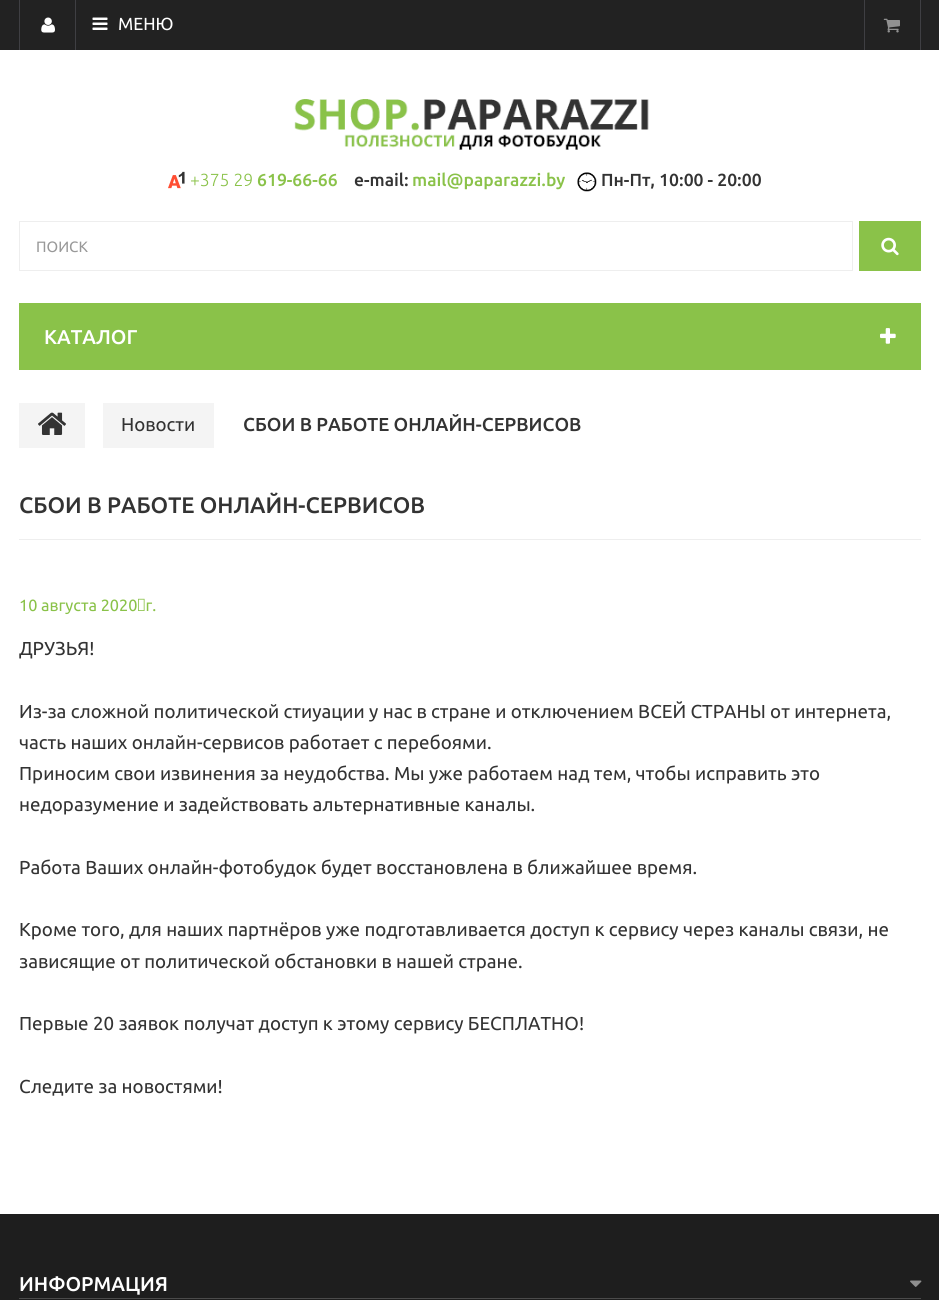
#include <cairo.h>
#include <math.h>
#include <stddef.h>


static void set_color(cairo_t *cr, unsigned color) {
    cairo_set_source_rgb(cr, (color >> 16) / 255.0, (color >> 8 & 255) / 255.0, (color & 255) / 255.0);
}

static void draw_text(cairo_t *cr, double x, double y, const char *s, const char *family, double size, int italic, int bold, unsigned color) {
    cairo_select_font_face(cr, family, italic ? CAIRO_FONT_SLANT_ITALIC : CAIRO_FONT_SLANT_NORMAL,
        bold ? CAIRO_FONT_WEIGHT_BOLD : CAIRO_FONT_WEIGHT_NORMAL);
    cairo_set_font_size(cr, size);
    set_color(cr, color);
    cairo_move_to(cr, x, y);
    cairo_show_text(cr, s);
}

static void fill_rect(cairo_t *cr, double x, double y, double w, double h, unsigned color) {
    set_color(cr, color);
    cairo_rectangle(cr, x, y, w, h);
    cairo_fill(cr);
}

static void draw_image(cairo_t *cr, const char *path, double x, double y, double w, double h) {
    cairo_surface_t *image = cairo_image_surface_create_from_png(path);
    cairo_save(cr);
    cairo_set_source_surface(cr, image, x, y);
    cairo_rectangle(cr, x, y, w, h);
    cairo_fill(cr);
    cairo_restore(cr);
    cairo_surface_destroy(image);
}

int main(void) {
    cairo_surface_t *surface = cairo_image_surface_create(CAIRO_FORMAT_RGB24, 939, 1300);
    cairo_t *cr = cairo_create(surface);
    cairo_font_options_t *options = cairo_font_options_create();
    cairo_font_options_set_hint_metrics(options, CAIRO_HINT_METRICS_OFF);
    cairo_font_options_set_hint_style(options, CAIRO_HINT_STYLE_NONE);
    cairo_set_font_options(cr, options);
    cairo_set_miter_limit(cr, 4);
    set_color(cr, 0xFFFFFF);
    cairo_paint(cr);
    fill_rect(cr, 0, 0, 939, 50, 0x222222);
    fill_rect(cr, 75, 0, 1, 50, 0x3F3F43);
    fill_rect(cr, 19, 0, 1, 50, 0x3F3F43);
    draw_image(cr, "assets/img1.png", 41, 17, 14, 16);
    draw_image(cr, "assets/img2.png", 92, 17, 16, 13);
    draw_text(cr, 118, 30, "МЕНЮ", "Ubuntu", 17.5, 0, 0, 0xFFFFFF);
    fill_rect(cr, 920, 0, 1, 50, 0x3F3F43);
    fill_rect(cr, 864, 0, 1, 50, 0x3F3F43);
    draw_image(cr, "assets/img3.png", 883, 18, 17, 15);
    draw_image(cr, "assets/img4.png", 294, 99, 355, 51);
    draw_image(cr, "assets/img5.png", 168, 171, 17, 18);
    draw_text(cr, 190, 186, "+375 29", "Ubuntu Light", 17.5, 0, 0, 0x8AC249);
    draw_text(cr, 257, 186, "619-66-66", "Ubuntu Medium", 17.5, 0, 0, 0x8AC249);
    draw_text(cr, 354, 186, "e-mail:", "Ubuntu Medium", 17.5, 0, 0, 0x333333);
    draw_text(cr, 412, 186, "mail@paparazzi.by", "Ubuntu Medium", 17.5, 0, 0, 0x8AC249);
    draw_image(cr, "assets/img6.png", 577, 172, 20, 20);
    draw_text(cr, 601, 186, "Пн-Пт, 10:00 - 20:00", "Ubuntu Medium", 17.5, 0, 0, 0x333333);
    cairo_rectangle(cr, 19.5, 221.5, 833, 49);
    set_color(cr, 0xEEEEEE);
    cairo_set_line_width(cr, 1);
    cairo_stroke(cr);
    draw_text(cr, 36, 252, "ПОИСК", "Ubuntu", 15, 0, 0, 0x999999);
    fill_rect(cr, 859, 221, 62, 50, 0x8AC249);
    draw_image(cr, "assets/img7.png", 881, 237, 18, 19);
    fill_rect(cr, 19, 303, 902, 67, 0x8AC249);
    draw_text(cr, 44, 344, "КАТАЛОГ", "Ubuntu Medium", 20, 0, 0, 0xFFFFFF);
    draw_image(cr, "assets/img8.png", 880, 328, 16, 16);
    fill_rect(cr, 19, 403, 66, 45, 0xF4F4F4);
    draw_image(cr, "assets/img9.png", 38, 412, 28, 23);
    fill_rect(cr, 103, 403, 111, 45, 0xF4F4F4);
    draw_text(cr, 121, 431, "Новости", "Ubuntu", 18.75, 0, 0, 0x333333);
    draw_text(cr, 243, 431, "СБОИ В РАБОТЕ ОНЛАЙН-СЕРВИСОВ", "Ubuntu Medium", 18.75, 0, 0, 0x333333);
    fill_rect(cr, 19, 539, 902, 1, 0xEEEEEE);
    draw_text(cr, 19, 513, "СБОИ В РАБОТЕ ОНЛАЙН-СЕРВИСОВ", "Ubuntu Medium", 22.5, 0, 0, 0x333333);
    draw_text(cr, 19, 611, "10 августа 2020 г.", "Ubuntu", 16.25, 0, 0, 0x8AC249);
    draw_text(cr, 19, 655, "ДРУЗЬЯ!", "Ubuntu", 18.75, 0, 0, 0x333333);
    draw_text(cr, 19, 718, "Из-за сложной политической стиуации у нас в стране и отключением ВСЕЙ СТРАНЫ от интернета,", "Ubuntu", 18.75, 0, 0, 0x333333);
    draw_text(cr, 19, 749, "часть наших онлайн-сервисов работает с перебоями.", "Ubuntu", 18.75, 0, 0, 0x333333);
    draw_text(cr, 19, 780, "Приносим свои извинения за неудобства. Мы уже работаем над тем, чтобы исправить это", "Ubuntu", 18.75, 0, 0, 0x333333);
    draw_text(cr, 19, 811, "недоразумение и задействовать альтернативные каналы.", "Ubuntu", 18.75, 0, 0, 0x333333);
    draw_text(cr, 19, 874, "Работа Ваших онлайн-фотобудок будет восстановлена в ближайшее время.", "Ubuntu", 18.75, 0, 0, 0x333333);
    draw_text(cr, 19, 936, "Кроме того, для наших партнёров уже подготавливается доступ к сервису через каналы связи, не", "Ubuntu", 18.75, 0, 0, 0x333333);
    draw_text(cr, 19, 968, "зависящие от политической обстановки в нашей стране.", "Ubuntu", 18.75, 0, 0, 0x333333);
    draw_text(cr, 19, 1030, "Первые 20 заявок получат доступ к этому сервису БЕСПЛАТНО!", "Ubuntu", 18.75, 0, 0, 0x333333);
    draw_text(cr, 19, 1093, "Следите за новостями!", "Ubuntu", 18.75, 0, 0, 0x333333);
    fill_rect(cr, 0, 1214, 939, 86, 0x1E1E1E);
    fill_rect(cr, 19, 1298, 902, 1, 0x4B4B4B);
    draw_text(cr, 19, 1291, "ИНФОРМАЦИЯ", "Ubuntu Medium", 20, 0, 0, 0xFFFFFF);
    draw_image(cr, "assets/img10.png", 910, 1280, 12, 7);
    cairo_surface_write_to_png(surface, "output.png");
    cairo_font_options_destroy(options);
    cairo_destroy(cr);
    cairo_surface_destroy(surface);
    return 0;
}
